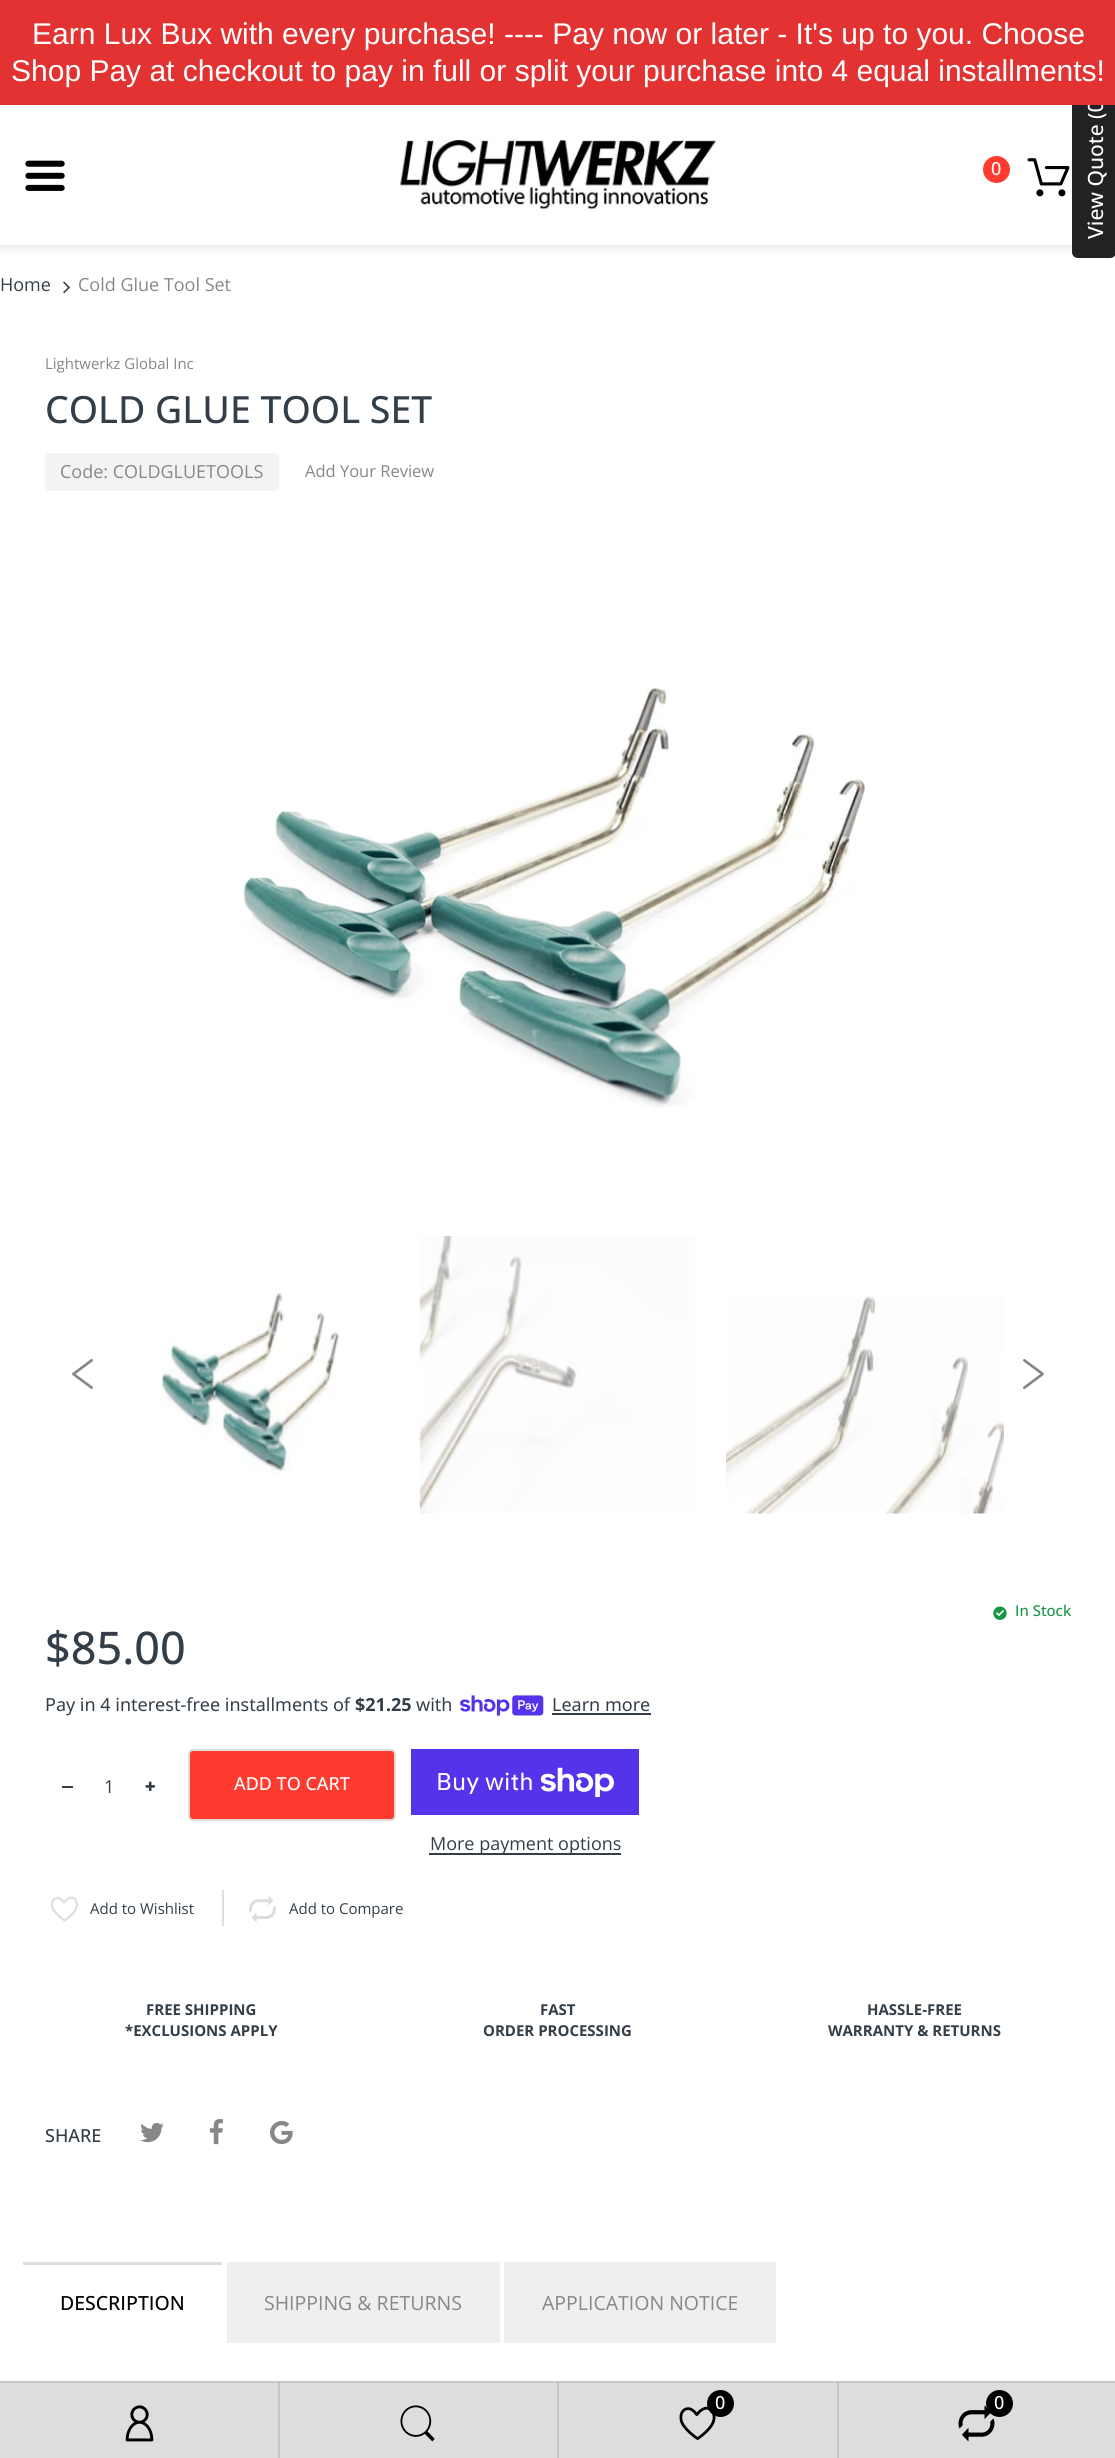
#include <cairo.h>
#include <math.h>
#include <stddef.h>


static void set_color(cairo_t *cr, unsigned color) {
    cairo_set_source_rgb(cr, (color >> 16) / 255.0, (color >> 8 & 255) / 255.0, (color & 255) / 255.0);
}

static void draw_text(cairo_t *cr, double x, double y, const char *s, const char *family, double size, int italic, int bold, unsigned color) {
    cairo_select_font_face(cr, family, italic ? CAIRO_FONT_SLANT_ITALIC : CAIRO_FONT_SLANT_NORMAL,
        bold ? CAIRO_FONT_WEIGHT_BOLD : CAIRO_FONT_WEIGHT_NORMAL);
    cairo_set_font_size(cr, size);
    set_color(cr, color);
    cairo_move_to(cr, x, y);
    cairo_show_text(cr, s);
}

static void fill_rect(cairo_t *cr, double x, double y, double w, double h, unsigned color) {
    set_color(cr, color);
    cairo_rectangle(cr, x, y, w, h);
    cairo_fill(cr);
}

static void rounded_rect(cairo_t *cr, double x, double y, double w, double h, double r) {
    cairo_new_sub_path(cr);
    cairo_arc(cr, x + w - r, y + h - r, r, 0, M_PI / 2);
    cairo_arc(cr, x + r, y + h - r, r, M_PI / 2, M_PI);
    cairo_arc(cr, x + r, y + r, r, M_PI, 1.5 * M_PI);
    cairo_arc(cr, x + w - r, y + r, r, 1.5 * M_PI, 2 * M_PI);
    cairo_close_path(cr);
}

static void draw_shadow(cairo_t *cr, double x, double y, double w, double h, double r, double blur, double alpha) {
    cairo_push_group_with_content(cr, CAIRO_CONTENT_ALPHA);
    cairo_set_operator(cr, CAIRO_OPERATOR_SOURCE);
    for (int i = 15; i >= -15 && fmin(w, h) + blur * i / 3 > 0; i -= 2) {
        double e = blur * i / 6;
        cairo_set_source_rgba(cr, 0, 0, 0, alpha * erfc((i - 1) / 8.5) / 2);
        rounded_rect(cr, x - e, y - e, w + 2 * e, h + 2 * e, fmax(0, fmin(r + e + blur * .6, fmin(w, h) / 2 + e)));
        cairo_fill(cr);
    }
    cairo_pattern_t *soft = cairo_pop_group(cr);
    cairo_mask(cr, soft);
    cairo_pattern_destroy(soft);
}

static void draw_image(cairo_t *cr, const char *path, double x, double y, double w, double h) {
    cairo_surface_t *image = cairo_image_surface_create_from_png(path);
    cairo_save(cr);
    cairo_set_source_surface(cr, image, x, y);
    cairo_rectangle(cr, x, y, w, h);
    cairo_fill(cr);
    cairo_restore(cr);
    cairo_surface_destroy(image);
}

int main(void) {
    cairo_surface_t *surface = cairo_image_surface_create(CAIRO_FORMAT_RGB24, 1115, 2458);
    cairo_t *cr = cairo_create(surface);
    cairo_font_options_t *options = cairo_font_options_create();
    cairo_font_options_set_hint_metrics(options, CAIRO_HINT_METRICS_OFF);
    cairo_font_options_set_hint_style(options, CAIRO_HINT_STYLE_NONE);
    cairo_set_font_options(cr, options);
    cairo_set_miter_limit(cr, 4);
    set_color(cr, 0xFFFFFF);
    cairo_paint(cr);
    set_color(cr, 0xC9C9C9);
    draw_shadow(cr, 0, 105, 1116, 140, 0, 6, 0.75);
    set_color(cr, 0x202223);
    cairo_new_path(cr);
    cairo_move_to(cr, 1072, 252);
    cairo_line_to(cr, 1072, 80);
    cairo_curve_to(cr, 1072, 77, 1075, 74, 1078, 74);
    cairo_line_to(cr, 1110, 74);
    cairo_curve_to(cr, 1113, 74, 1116, 77, 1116, 80);
    cairo_line_to(cr, 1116, 252);
    cairo_curve_to(cr, 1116, 256, 1113, 258, 1110, 258);
    cairo_line_to(cr, 1078, 258);
    cairo_curve_to(cr, 1075, 258, 1072, 256, 1072, 252);
    cairo_close_path(cr);
    cairo_fill(cr);
    cairo_save(cr);
    cairo_translate(cr, 1103, 239);
    cairo_rotate(cr, -90 * M_PI / 180);
    draw_text(cr, 0, 0, "View Quote (0)", "Open Sans Medium", 21, 0, 0, 0xFFFFFF);
    cairo_restore(cr);
    fill_rect(cr, 0, 0, 1115, 105, 0xE23232);
    draw_text(cr, 32, 44, "Earn Lux Bux with every purchase! ---- Pay now or later - It's up to you. Choose", "Liberation Sans", 30, 0, 0, 0xFFFFFF);
    draw_text(cr, 11, 81, "Shop Pay at checkout to pay in full or split your purchase into 4 equal installments!", "Liberation Sans", 30, 0, 0, 0xFFFFFF);
    fill_rect(cr, 0, 105, 1072, 140, 0xFFFFFF);
    draw_image(cr, "assets/img1.png", 25, 160, 40, 31);
    draw_image(cr, "assets/img2.png", 400, 137, 316, 73);
    set_color(cr, 0xFF3B30);
    cairo_arc(cr, 996.5, 169.5, 13.5, 0, 2 * M_PI);
    cairo_fill(cr);
    draw_text(cr, 991, 175, "0", "Open Sans Medium", 18, 0, 0, 0xFFFFFF);
    draw_image(cr, "assets/img3.png", 1027, 158, 43, 39);
    draw_text(cr, 0, 291, "Home", "Open Sans", 18, 0, 0, 0x333E48);
    draw_image(cr, "assets/img4.png", 63, 281, 7, 13);
    draw_text(cr, 78, 291, "Cold Glue Tool Set", "Open Sans", 18, 0, 0, 0x878787);
    draw_text(cr, 45, 369, "Lightwerkz Global Inc", "Open Sans", 15, 0, 0, 0x878787);
    draw_text(cr, 45, 423, "COLD GLUE TOOL SET", "Open Sans Medium", 37.5, 0, 0, 0x333E48);
    set_color(cr, 0xF3F3F3);
    rounded_rect(cr, 45, 453, 234, 38, 5);
    cairo_fill(cr);
    draw_text(cr, 60, 478, "Code: COLDGLUETOOLS", "Open Sans", 18, 0, 0, 0x878787);
    draw_text(cr, 305, 477, "Add Your Review", "Open Sans", 16.5, 0, 0, 0x878787);
    draw_image(cr, "assets/img5.png", 243, 687, 622, 421);
    draw_image(cr, "assets/img6.png", 162, 1292, 177, 182);
    draw_image(cr, "assets/img7.png", 419, 1236, 276, 278);
    draw_image(cr, "assets/img8.png", 726, 1295, 278, 219);
    draw_image(cr, "assets/img9.png", 72, 1359, 21, 30);
    draw_image(cr, "assets/img10.png", 1023, 1359, 21, 30);
    draw_image(cr, "assets/img11.png", 993, 1606, 14, 14);
    draw_text(cr, 1015, 1616, "In Stock", "Open Sans Medium", 15, 0, 0, 0x169543);
    draw_text(cr, 45, 1664, "$85.00", "Open Sans Medium", 45, 0, 0, 0x333E48);
    draw_text(cr, 45, 1711, "Pay in 4 interest-free installments of", "Noto Sans", 18, 0, 0, 0x333E48);
    draw_text(cr, 355, 1711, "$21.25", "Noto Sans", 18, 0, 1, 0x333E48);
    draw_text(cr, 416, 1711, "with", "Noto Sans", 18, 0, 0, 0x333E48);
    draw_image(cr, "assets/img12.png", 460, 1695, 84, 21);
    draw_text(cr, 552, 1711, "Learn more", "Noto Sans", 18, 0, 0, 0x333E48);
    fill_rect(cr, 552, 1713, 99, 2, 0x333E48);
    draw_text(cr, 104, 1793, "1", "Open Sans", 18, 0, 0, 0x333E48);
    fill_rect(cr, 62, 1786, 11, 2, 0x333E48);
    draw_image(cr, "assets/img13.png", 145, 1781, 10, 11);
    set_color(cr, 0xFF3B30);
    rounded_rect(cr, 189, 1750, 206, 70, 4);
    cairo_fill_preserve(cr);
    set_color(cr, 0xDDDDDD);
    cairo_stroke(cr);
    draw_text(cr, 234, 1790, "ADD TO CART", "Open Sans Medium", 18, 0, 0, 0xFFFFFF);
    fill_rect(cr, 411, 1749, 228, 66, 0x5433EB);
    draw_text(cr, 436, 1790, "Buy with", "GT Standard", 24, 0, 0, 0xFFFFFF);
    draw_image(cr, "assets/img14.png", 540, 1767, 74, 30);
    fill_rect(cr, 429, 1853, 192, 2, 0x333E48);
    draw_text(cr, 430, 1850, "More payment options", "Open Sans", 18, 0, 0, 0x333E48);
    draw_image(cr, "assets/img15.png", 51, 1896, 27, 26);
    draw_text(cr, 90, 1914, "Add to Wishlist", "Open Sans", 15, 0, 0, 0x333E48);
    fill_rect(cr, 222, 1890, 2, 36, 0xDDDDDD);
    draw_image(cr, "assets/img16.png", 249, 1896, 27, 27);
    draw_text(cr, 289, 1914, "Add to Compare", "Open Sans", 15, 0, 0, 0x333E48);
    draw_text(cr, 146, 2015, "FREE SHIPPING", "Open Sans", 15, 0, 1, 0x333E48);
    draw_text(cr, 125, 2036, "*EXCLUSIONS APPLY", "Open Sans", 15, 0, 1, 0x333E48);
    draw_text(cr, 540, 2015, "FAST", "Open Sans", 15, 0, 1, 0x333E48);
    draw_text(cr, 483, 2036, "ORDER PROCESSING", "Open Sans", 15, 0, 1, 0x333E48);
    draw_text(cr, 867, 2015, "HASSLE-FREE", "Open Sans", 15, 0, 1, 0x333E48);
    draw_text(cr, 828, 2036, "WARRANTY & RETURNS", "Open Sans", 15, 0, 1, 0x333E48);
    draw_text(cr, 45, 2142, "SHARE", "Open Sans Medium", 18, 0, 0, 0x333E48);
    draw_image(cr, "assets/img17.png", 140, 2122, 24, 21);
    draw_image(cr, "assets/img18.png", 209, 2119, 14, 26);
    draw_image(cr, "assets/img19.png", 270, 2121, 23, 24);
    fill_rect(cr, 23, 2262, 199, 3, 0xDDDDDD);
    draw_text(cr, 60, 2310, "DESCRIPTION", "Open Sans Medium", 19.5, 0, 0, 0x000000);
    fill_rect(cr, 227, 2262, 273, 81, 0xEFEFEF);
    draw_text(cr, 264, 2310, "SHIPPING & RETURNS", "Open Sans", 19.5, 0, 0, 0x878787);
    fill_rect(cr, 504, 2262, 272, 81, 0xEFEFEF);
    draw_text(cr, 542, 2310, "APPLICATION NOTICE", "Open Sans", 19.5, 0, 0, 0x878787);
    fill_rect(cr, 0, 2383, 1115, 75, 0xDDDDDD);
    fill_rect(cr, 0, 2381, 1115, 2, 0xC7C7C7);
    cairo_set_source_rgba(cr, 0, 0, 0, 0.1);
    cairo_rectangle(cr, 278, 2382, 2, 76);
    cairo_fill(cr);
    draw_image(cr, "assets/img20.png", 125, 2405, 29, 37);
    cairo_rectangle(cr, 557, 2382, 2, 76);
    cairo_fill(cr);
    draw_image(cr, "assets/img21.png", 400, 2405, 35, 37);
    cairo_rectangle(cr, 837, 2382, 2, 76);
    cairo_fill(cr);
    draw_image(cr, "assets/img22.png", 679, 2406, 37, 34);
    set_color(cr, 0x000000);
    cairo_arc(cr, 720.5, 2403.5, 13.5, 0, 2 * M_PI);
    cairo_fill(cr);
    draw_text(cr, 715, 2409, "0", "Open Sans Medium", 18, 0, 0, 0xFFFFFF);
    draw_image(cr, "assets/img23.png", 958, 2405, 37, 37);
    set_color(cr, 0x000000);
    cairo_arc(cr, 999.5, 2403.5, 13.5, 0, 2 * M_PI);
    cairo_fill(cr);
    draw_text(cr, 994, 2409, "0", "Open Sans Medium", 18, 0, 0, 0xFFFFFF);
    cairo_surface_write_to_png(surface, "output.png");
    cairo_font_options_destroy(options);
    cairo_destroy(cr);
    cairo_surface_destroy(surface);
    return 0;
}
